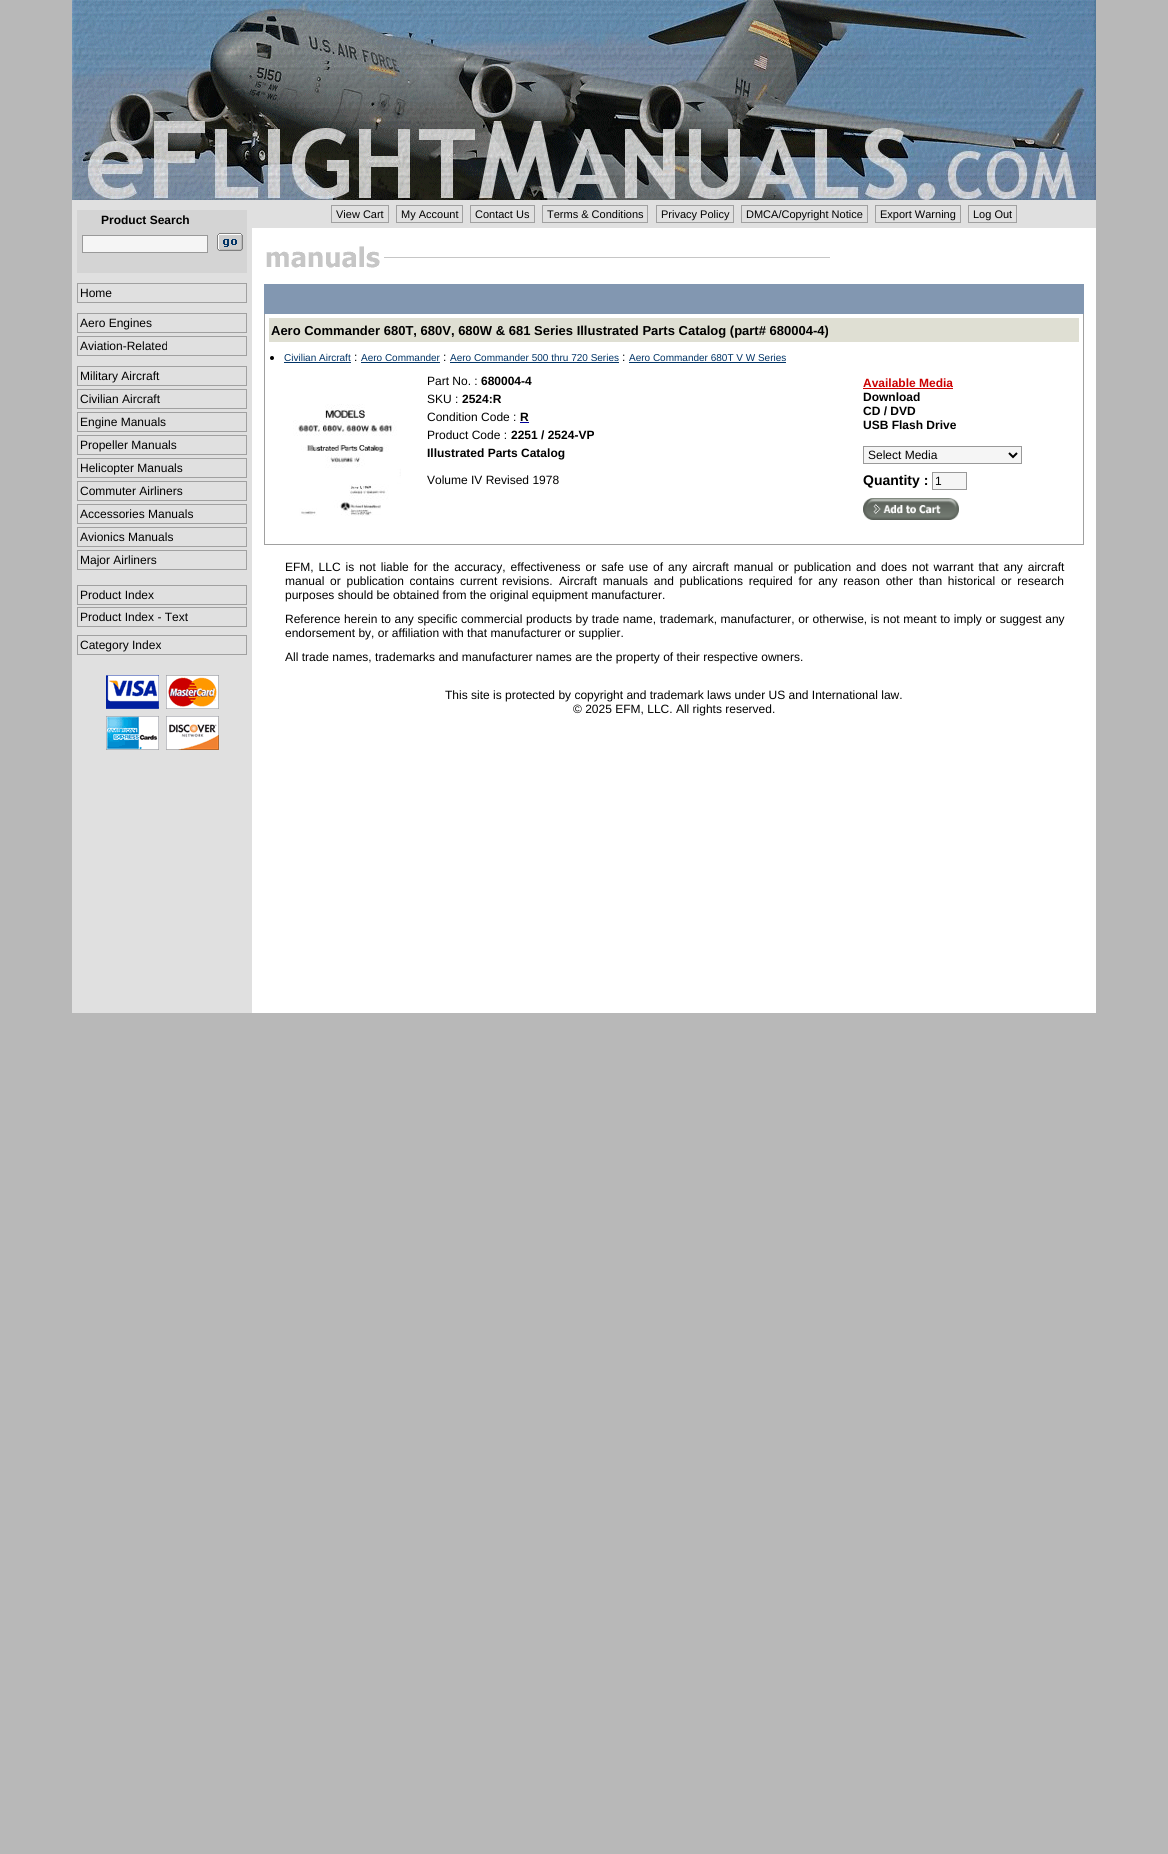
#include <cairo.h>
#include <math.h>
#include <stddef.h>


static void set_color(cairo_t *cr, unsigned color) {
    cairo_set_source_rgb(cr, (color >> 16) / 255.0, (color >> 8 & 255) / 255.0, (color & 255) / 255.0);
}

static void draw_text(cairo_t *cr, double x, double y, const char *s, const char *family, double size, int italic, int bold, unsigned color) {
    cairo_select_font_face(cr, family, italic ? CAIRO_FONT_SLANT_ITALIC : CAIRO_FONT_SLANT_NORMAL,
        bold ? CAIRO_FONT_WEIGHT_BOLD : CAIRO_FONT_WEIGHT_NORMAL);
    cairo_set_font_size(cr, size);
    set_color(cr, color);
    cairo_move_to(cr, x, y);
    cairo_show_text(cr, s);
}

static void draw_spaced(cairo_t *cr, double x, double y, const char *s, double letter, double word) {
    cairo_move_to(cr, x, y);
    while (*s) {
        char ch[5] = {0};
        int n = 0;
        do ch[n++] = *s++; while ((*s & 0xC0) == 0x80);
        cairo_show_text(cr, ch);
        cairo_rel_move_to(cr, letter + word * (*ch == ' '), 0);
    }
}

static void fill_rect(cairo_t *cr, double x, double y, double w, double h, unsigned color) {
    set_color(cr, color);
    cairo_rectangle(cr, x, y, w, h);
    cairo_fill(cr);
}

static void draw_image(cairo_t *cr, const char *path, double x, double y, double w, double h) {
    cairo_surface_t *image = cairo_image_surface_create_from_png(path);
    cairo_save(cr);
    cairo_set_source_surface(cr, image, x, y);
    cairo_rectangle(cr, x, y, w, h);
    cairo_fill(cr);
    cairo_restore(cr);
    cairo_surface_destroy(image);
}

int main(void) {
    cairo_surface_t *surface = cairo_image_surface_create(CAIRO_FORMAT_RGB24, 1168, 1854);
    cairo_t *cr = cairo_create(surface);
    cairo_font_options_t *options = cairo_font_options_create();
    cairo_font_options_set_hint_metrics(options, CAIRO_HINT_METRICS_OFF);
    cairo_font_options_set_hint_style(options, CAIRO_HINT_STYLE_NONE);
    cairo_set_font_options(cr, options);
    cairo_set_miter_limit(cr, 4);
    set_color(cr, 0xB8B8B8);
    cairo_paint(cr);
    fill_rect(cr, 252, 228, 844, 785, 0xFFFFFF);
    draw_image(cr, "assets/img1.png", 72, 0, 1024, 200);
    fill_rect(cr, 72, 200, 180, 813, 0xE0E0E0);
    fill_rect(cr, 77, 210, 170, 63, 0xD4D4D4);
    draw_text(cr, 101, 224, "Product Search", "Liberation Sans", 12, 0, 1, 0x000000);
    set_color(cr, 0xF5F5F5);
    cairo_rectangle(cr, 82.5, 235.5, 125, 17);
    cairo_fill_preserve(cr);
    set_color(cr, 0x999999);
    cairo_set_line_width(cr, 1);
    cairo_stroke(cr);
    draw_image(cr, "assets/img2.png", 217, 233, 26, 18);
    cairo_rectangle(cr, 77.5, 283.5, 169, 19);
    set_color(cr, 0xA0A0A0);
    cairo_stroke(cr);
    draw_text(cr, 80, 297, "Home", "Liberation Sans", 12, 0, 0, 0x000000);
    cairo_rectangle(cr, 77.5, 313.5, 169, 19);
    set_color(cr, 0xA0A0A0);
    cairo_stroke(cr);
    draw_text(cr, 80, 327, "Aero Engines", "Liberation Sans", 12, 0, 0, 0x000000);
    cairo_rectangle(cr, 77.5, 336.5, 169, 19);
    set_color(cr, 0xA0A0A0);
    cairo_stroke(cr);
    draw_text(cr, 80, 350, "Aviation-Related", "Liberation Sans", 12, 0, 0, 0x000000);
    cairo_rectangle(cr, 77.5, 366.5, 169, 19);
    set_color(cr, 0xA0A0A0);
    cairo_stroke(cr);
    draw_text(cr, 80, 380, "Military Aircraft", "Liberation Sans", 12, 0, 0, 0x000000);
    cairo_rectangle(cr, 77.5, 389.5, 169, 19);
    set_color(cr, 0xA0A0A0);
    cairo_stroke(cr);
    draw_text(cr, 80, 403, "Civilian Aircraft", "Liberation Sans", 12, 0, 0, 0x000000);
    cairo_rectangle(cr, 77.5, 412.5, 169, 19);
    set_color(cr, 0xA0A0A0);
    cairo_stroke(cr);
    draw_text(cr, 80, 426, "Engine Manuals", "Liberation Sans", 12, 0, 0, 0x000000);
    cairo_rectangle(cr, 77.5, 435.5, 169, 19);
    set_color(cr, 0xA0A0A0);
    cairo_stroke(cr);
    draw_text(cr, 80, 449, "Propeller Manuals", "Liberation Sans", 12, 0, 0, 0x000000);
    cairo_rectangle(cr, 77.5, 458.5, 169, 19);
    set_color(cr, 0xA0A0A0);
    cairo_stroke(cr);
    draw_text(cr, 80, 472, "Helicopter Manuals", "Liberation Sans", 12, 0, 0, 0x000000);
    cairo_rectangle(cr, 77.5, 481.5, 169, 19);
    set_color(cr, 0xA0A0A0);
    cairo_stroke(cr);
    draw_text(cr, 80, 495, "Commuter Airliners", "Liberation Sans", 12, 0, 0, 0x000000);
    cairo_rectangle(cr, 77.5, 504.5, 169, 19);
    set_color(cr, 0xA0A0A0);
    cairo_stroke(cr);
    draw_text(cr, 80, 518, "Accessories Manuals", "Liberation Sans", 12, 0, 0, 0x000000);
    cairo_rectangle(cr, 77.5, 527.5, 169, 19);
    set_color(cr, 0xA0A0A0);
    cairo_stroke(cr);
    draw_text(cr, 80, 541, "Avionics Manuals", "Liberation Sans", 12, 0, 0, 0x000000);
    cairo_rectangle(cr, 77.5, 550.5, 169, 19);
    set_color(cr, 0xA0A0A0);
    cairo_stroke(cr);
    draw_text(cr, 80, 564, "Major Airliners", "Liberation Sans", 12, 0, 0, 0x000000);
    cairo_rectangle(cr, 77.5, 585.5, 169, 19);
    set_color(cr, 0xA0A0A0);
    cairo_stroke(cr);
    draw_text(cr, 80, 599, "Product Index", "Liberation Sans", 12, 0, 0, 0x000000);
    cairo_rectangle(cr, 77.5, 607.5, 169, 19);
    set_color(cr, 0xA0A0A0);
    cairo_stroke(cr);
    draw_text(cr, 80, 621, "Product Index - Text", "Liberation Sans", 12, 0, 0, 0x000000);
    cairo_rectangle(cr, 77.5, 635.5, 169, 19);
    set_color(cr, 0xA0A0A0);
    cairo_stroke(cr);
    draw_text(cr, 80, 649, "Category Index", "Liberation Sans", 12, 0, 0, 0x000000);
    draw_image(cr, "assets/img3.png", 106, 675, 113, 75);
    fill_rect(cr, 252, 200, 844, 28, 0xE0E0E0);
    cairo_rectangle(cr, 331.5, 205.5, 57, 17);
    set_color(cr, 0xA0A0A0);
    cairo_stroke(cr);
    draw_text(cr, 336, 218, "View Cart", "Liberation Sans", 11, 0, 0, 0x000000);
    cairo_rectangle(cr, 396.5, 205.5, 66, 17);
    set_color(cr, 0xA0A0A0);
    cairo_stroke(cr);
    draw_text(cr, 401, 218, "My Account", "Liberation Sans", 11, 0, 0, 0x000000);
    cairo_rectangle(cr, 470.5, 205.5, 64, 17);
    set_color(cr, 0xA0A0A0);
    cairo_stroke(cr);
    draw_text(cr, 475, 218, "Contact Us", "Liberation Sans", 11, 0, 0, 0x000000);
    cairo_rectangle(cr, 542.5, 205.5, 105, 17);
    set_color(cr, 0xA0A0A0);
    cairo_stroke(cr);
    draw_text(cr, 547, 218, "Terms & Conditions", "Liberation Sans", 11, 0, 0, 0x000000);
    cairo_rectangle(cr, 656.5, 205.5, 77, 17);
    set_color(cr, 0xA0A0A0);
    cairo_stroke(cr);
    draw_text(cr, 661, 218, "Privacy Policy", "Liberation Sans", 11, 0, 0, 0x000000);
    cairo_rectangle(cr, 741.5, 205.5, 126, 17);
    set_color(cr, 0xA0A0A0);
    cairo_stroke(cr);
    draw_text(cr, 746, 218, "DMCA/Copyright Notice", "Liberation Sans", 11, 0, 0, 0x000000);
    cairo_rectangle(cr, 875.5, 205.5, 85, 17);
    set_color(cr, 0xA0A0A0);
    cairo_stroke(cr);
    draw_text(cr, 880, 218, "Export Warning", "Liberation Sans", 11, 0, 0, 0x000000);
    cairo_rectangle(cr, 968.5, 205.5, 48, 17);
    set_color(cr, 0xA0A0A0);
    cairo_stroke(cr);
    draw_text(cr, 973, 218, "Log Out", "Liberation Sans", 11, 0, 0, 0x000000);
    draw_image(cr, "assets/img4.png", 266, 246, 564, 22);
    fill_rect(cr, 264, 284, 820, 30, 0x8297B1);
    fill_rect(cr, 264, 314, 1, 230, 0xA0A0A0);
    fill_rect(cr, 269, 318, 810, 24, 0xDFDFD3);
    draw_text(cr, 271, 335, "Aero Commander 680T, 680V, 680W & 681 Series Illustrated Parts Catalog (part# 680004-4)", "Liberation Sans", 13, 0, 1, 0x000000);
    cairo_new_path(cr);
    cairo_arc(cr, 272, 358, 2, 0, 2 * M_PI);
    cairo_fill(cr);
    draw_text(cr, 284, 361, "Civilian Aircraft", "Liberation Sans", 10, 0, 0, 0x003366);
    fill_rect(cr, 284, 362, 67, 1, 0x003366);
    draw_text(cr, 354, 361, ":", "Liberation Sans", 12, 0, 0, 0x000000);
    draw_text(cr, 361, 361, "Aero Commander", "Liberation Sans", 10, 0, 0, 0x003366);
    fill_rect(cr, 361, 362, 79, 1, 0x003366);
    draw_text(cr, 443, 361, ":", "Liberation Sans", 12, 0, 0, 0x000000);
    draw_text(cr, 450, 361, "Aero Commander 500 thru 720 Series", "Liberation Sans", 10, 0, 0, 0x003366);
    fill_rect(cr, 450, 362, 169, 1, 0x003366);
    draw_text(cr, 622, 361, ":", "Liberation Sans", 12, 0, 0, 0x000000);
    draw_text(cr, 629, 361, "Aero Commander 680T V W Series", "Liberation Sans", 10, 0, 0, 0x003366);
    fill_rect(cr, 629, 362, 157, 1, 0x003366);
    draw_image(cr, "assets/img5.png", 293, 404, 108, 112);
    draw_text(cr, 427, 385, "Part No. :", "Liberation Sans", 12, 0, 0, 0x000000);
    draw_text(cr, 481, 385, "680004-4", "Liberation Sans", 12, 0, 1, 0x000000);
    draw_text(cr, 427, 403, "SKU :", "Liberation Sans", 12, 0, 0, 0x000000);
    draw_text(cr, 462, 403, "2524:R", "Liberation Sans", 12, 0, 1, 0x000000);
    draw_text(cr, 427, 421, "Condition Code :", "Liberation Sans", 12, 0, 0, 0x000000);
    draw_text(cr, 520, 421, "R", "Liberation Sans", 12, 0, 1, 0x000000);
    fill_rect(cr, 520, 422, 9, 1, 0x000099);
    draw_text(cr, 427, 439, "Product Code :", "Liberation Sans", 12, 0, 0, 0x000000);
    draw_text(cr, 511, 439, "2251 / 2524-VP", "Liberation Sans", 12, 0, 1, 0x000000);
    draw_text(cr, 427, 457, "Illustrated Parts Catalog", "Liberation Sans", 12, 0, 1, 0x000000);
    draw_text(cr, 427, 484, "Volume IV Revised 1978", "Liberation Sans", 12, 0, 0, 0x000000);
    draw_text(cr, 863, 387, "Available Media", "Liberation Sans", 12, 0, 1, 0xCC0000);
    fill_rect(cr, 863, 388, 90, 1, 0xCC0000);
    draw_text(cr, 863, 401, "Download", "Liberation Sans", 12, 0, 1, 0x000000);
    draw_text(cr, 863, 415, "CD / DVD", "Liberation Sans", 12, 0, 1, 0x000000);
    draw_text(cr, 863, 429, "USB Flash Drive", "Liberation Sans", 12, 0, 1, 0x000000);
    set_color(cr, 0xF5F5F5);
    cairo_rectangle(cr, 863.5, 446.5, 158, 17);
    cairo_fill_preserve(cr);
    set_color(cr, 0x999999);
    cairo_stroke(cr);
    cairo_new_path(cr);
    cairo_move_to(cr, 1009, 453);
    cairo_line_to(cr, 1013, 457);
    cairo_line_to(cr, 1017, 453);
    set_color(cr, 0x000000);
    cairo_set_line_width(cr, 2);
    cairo_stroke(cr);
    draw_text(cr, 868, 459, "Select Media", "Liberation Sans", 12, 0, 0, 0x000000);
    draw_text(cr, 863, 485, "Quantity :", "Liberation Sans", 14, 0, 1, 0x000000);
    set_color(cr, 0xF5F5F5);
    cairo_rectangle(cr, 932.5, 472.5, 34, 17);
    cairo_fill_preserve(cr);
    set_color(cr, 0x999999);
    cairo_set_line_width(cr, 1);
    cairo_stroke(cr);
    draw_text(cr, 935, 485, "1", "Liberation Sans", 12, 0, 0, 0x000000);
    draw_image(cr, "assets/img6.png", 863, 498, 96, 22);
    fill_rect(cr, 1083, 314, 1, 230, 0xA0A0A0);
    fill_rect(cr, 264, 544, 820, 1, 0xA0A0A0);
    set_color(cr, 0x000000);
    draw_spaced(cr, 285, 571, "EFM, LLC is not liable for the accuracy, effectiveness or safe use of any aircraft manual or publication and does not warrant that any aircraft", 0, 1.6);
    draw_spaced(cr, 285, 585, "manual or publication contains current", 0, 2.4);
    draw_text(cr, 502, 585, "revisions.", "Liberation Sans", 12, 0, 0, 0x000000);
    draw_spaced(cr, 559, 585, "Aircraft manuals and publications required for any reason other than historical or research", 0, 2.4);
    draw_text(cr, 285, 599, "purposes should be obtained from the original equipment manufacturer.", "Liberation Sans", 12, 0, 0, 0x000000);
    draw_spaced(cr, 285, 623, "Reference herein to any specific commercial products by trade name, trademark, manufacturer, or otherwise, is not meant to imply or suggest any", 0, 0.25);
    draw_text(cr, 285, 637, "endorsement by, or affiliation with that manufacturer or supplier.", "Liberation Sans", 12, 0, 0, 0x000000);
    draw_text(cr, 285, 661, "All trade names, trademarks and manufacturer names are the property of their respective owners.", "Liberation Sans", 12, 0, 0, 0x000000);
    draw_text(cr, 445, 699, "This site is protected by copyright and trademark laws under US and International law.", "Liberation Sans", 12, 0, 0, 0x000000);
    draw_text(cr, 573, 713, "© 2025 EFM, LLC. All rights reserved.", "Liberation Sans", 12, 0, 0, 0x000000);
    cairo_surface_write_to_png(surface, "output.png");
    cairo_font_options_destroy(options);
    cairo_destroy(cr);
    cairo_surface_destroy(surface);
    return 0;
}
